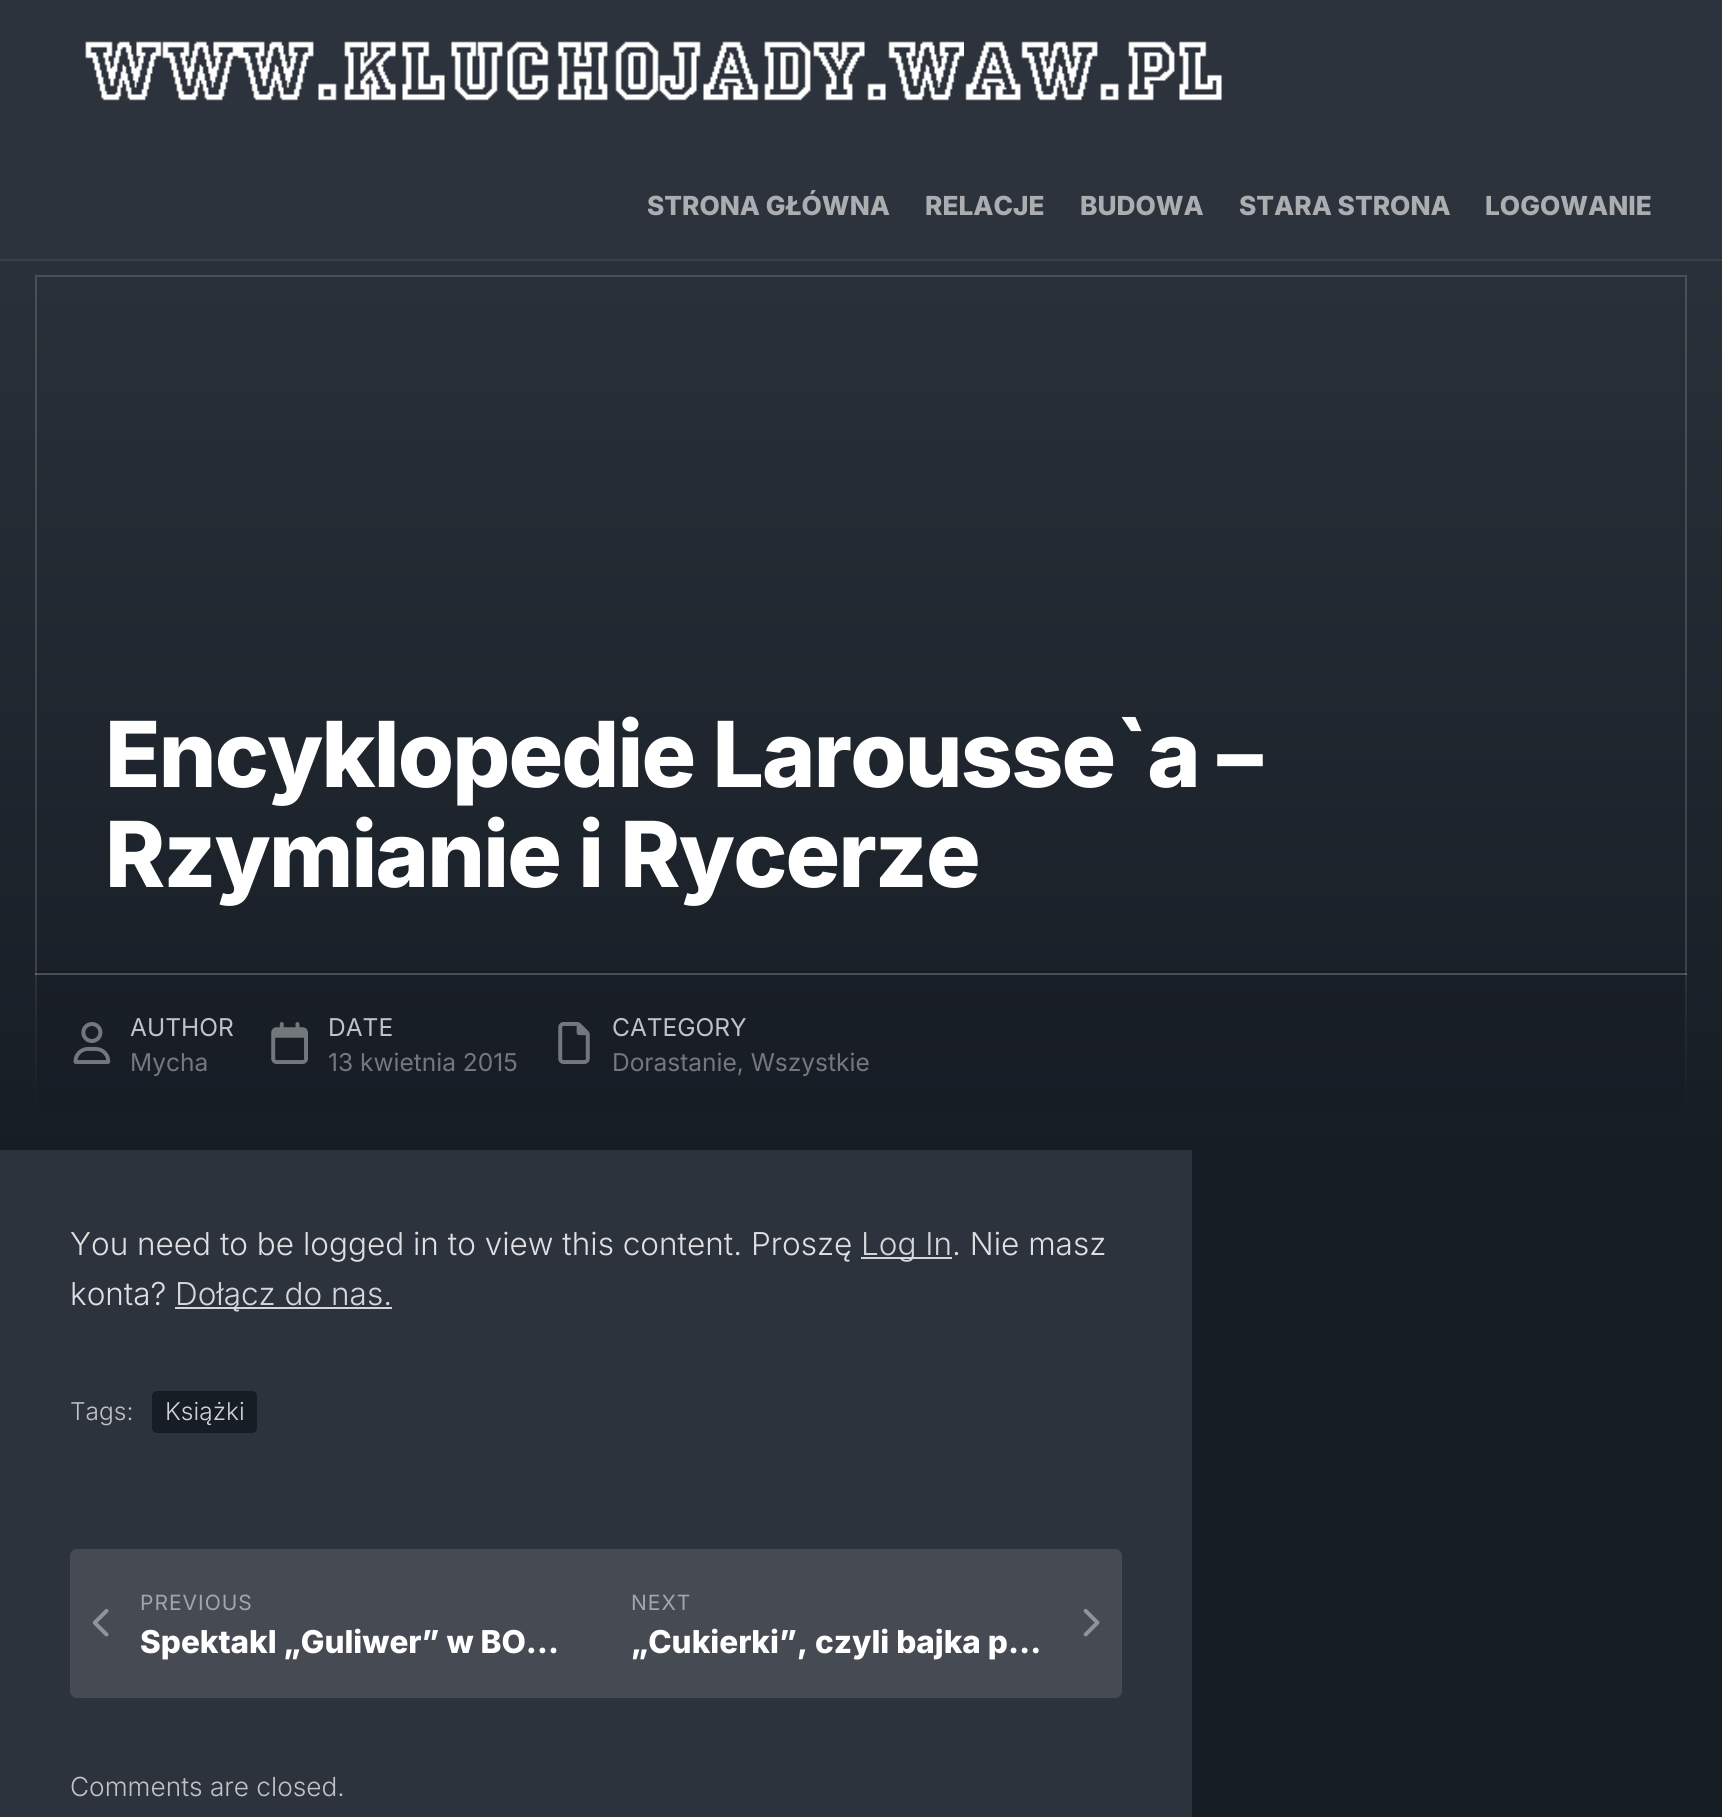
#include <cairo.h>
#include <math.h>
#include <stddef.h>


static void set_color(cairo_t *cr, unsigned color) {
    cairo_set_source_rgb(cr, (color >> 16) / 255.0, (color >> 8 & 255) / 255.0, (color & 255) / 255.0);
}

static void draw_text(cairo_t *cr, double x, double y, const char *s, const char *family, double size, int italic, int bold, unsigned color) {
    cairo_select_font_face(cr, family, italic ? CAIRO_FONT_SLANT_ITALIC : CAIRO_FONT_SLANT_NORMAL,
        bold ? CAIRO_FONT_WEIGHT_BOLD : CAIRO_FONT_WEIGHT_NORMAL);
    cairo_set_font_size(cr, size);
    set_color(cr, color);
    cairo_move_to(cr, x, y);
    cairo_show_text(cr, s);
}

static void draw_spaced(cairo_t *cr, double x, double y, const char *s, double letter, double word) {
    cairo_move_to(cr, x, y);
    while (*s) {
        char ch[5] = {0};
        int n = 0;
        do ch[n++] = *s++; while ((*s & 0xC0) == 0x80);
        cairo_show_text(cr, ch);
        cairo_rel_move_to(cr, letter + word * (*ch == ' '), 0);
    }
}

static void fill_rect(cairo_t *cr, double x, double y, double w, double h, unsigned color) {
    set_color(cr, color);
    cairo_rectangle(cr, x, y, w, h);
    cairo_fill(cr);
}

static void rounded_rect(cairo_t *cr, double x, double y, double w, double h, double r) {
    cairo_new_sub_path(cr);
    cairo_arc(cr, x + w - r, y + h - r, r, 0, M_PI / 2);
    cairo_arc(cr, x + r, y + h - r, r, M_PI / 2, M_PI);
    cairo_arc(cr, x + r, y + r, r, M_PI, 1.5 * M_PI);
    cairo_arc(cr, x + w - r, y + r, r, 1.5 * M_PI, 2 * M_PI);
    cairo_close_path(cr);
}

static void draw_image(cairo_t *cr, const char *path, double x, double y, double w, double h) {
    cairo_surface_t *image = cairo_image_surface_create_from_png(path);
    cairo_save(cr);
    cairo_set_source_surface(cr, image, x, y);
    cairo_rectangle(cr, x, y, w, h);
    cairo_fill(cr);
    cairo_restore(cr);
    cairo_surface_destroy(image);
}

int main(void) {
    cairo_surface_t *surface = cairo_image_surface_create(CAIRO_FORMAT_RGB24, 1722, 1817);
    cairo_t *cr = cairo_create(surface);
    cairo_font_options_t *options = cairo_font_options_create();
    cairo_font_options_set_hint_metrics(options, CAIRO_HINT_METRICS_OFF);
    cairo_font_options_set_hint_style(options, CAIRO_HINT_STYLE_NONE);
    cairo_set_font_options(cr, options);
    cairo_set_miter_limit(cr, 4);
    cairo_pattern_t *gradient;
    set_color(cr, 0x2D333C);
    cairo_paint(cr);
    fill_rect(cr, 0, 259, 1722, 2, 0x3A3F48);
    draw_image(cr, "assets/img1.png", 85, 41, 1137, 60);
    draw_text(cr, 647, 215, "STRONA GŁÓWNA", "Inter ExtraBold", 26.25, 0, 0, 0xABADB1);
    draw_text(cr, 925, 215, "RELACJE", "Inter ExtraBold", 26.25, 0, 0, 0xABADB1);
    draw_text(cr, 1080, 215, "BUDOWA", "Inter ExtraBold", 26.25, 0, 0, 0xABADB1);
    draw_text(cr, 1239, 215, "STARA STRONA", "Inter ExtraBold", 26.25, 0, 0, 0xABADB1);
    draw_text(cr, 1485, 215, "LOGOWANIE", "Inter ExtraBold", 26.25, 0, 0, 0xABADB1);
    gradient = cairo_pattern_create_linear(861, 1150, 861, 140);
    cairo_pattern_add_color_stop_rgba(gradient, 0, 0.09, 0.114, 0.145, 1);
    cairo_pattern_add_color_stop_rgba(gradient, 1, 0.176, 0.2, 0.235, 1);
    cairo_set_source(cr, gradient);
    cairo_pattern_destroy(gradient);
    cairo_rectangle(cr, 0, 261, 1722, 889);
    cairo_fill(cr);
    cairo_rectangle(cr, 36, 276, 1650, 838);
    cairo_set_source_rgba(cr, 1, 1, 1, 0.15);
    cairo_stroke(cr);
    cairo_set_font_size(cr, 91);
    set_color(cr, 0xFFFFFF);
    draw_spaced(cr, 105, 787, "Encyklopedie Larousse`a –", -1.8, 0);
    draw_spaced(cr, 105, 887, "Rzymianie i Rycerze", -1.8, 0);
    cairo_set_source_rgba(cr, 0, 0, 0, 0.2);
    cairo_rectangle(cr, 35, 971, 1652, 2);
    cairo_fill(cr);
    cairo_set_source_rgba(cr, 1, 1, 1, 0.2);
    cairo_rectangle(cr, 35, 973, 1652, 2);
    cairo_fill(cr);
    gradient = cairo_pattern_create_linear(861, 1115, 861, 870);
    cairo_pattern_add_color_stop_rgba(gradient, 0, 0.09, 0.114, 0.145, 1);
    cairo_pattern_add_color_stop_rgba(gradient, 1, 0.09, 0.114, 0.145, 0);
    cairo_set_source(cr, gradient);
    cairo_pattern_destroy(gradient);
    cairo_rectangle(cr, 35, 975, 1652, 140);
    cairo_fill(cr);
    draw_image(cr, "assets/img2.png", 73, 1022, 38, 42);
    draw_text(cr, 130, 1036, "AUTHOR", "Inter", 24.5, 0, 0, 0xC0C2C5);
    draw_text(cr, 130, 1071, "Mycha", "Inter", 24.5, 0, 0, 0x74787C);
    draw_image(cr, "assets/img3.png", 271, 1022, 37, 42);
    draw_text(cr, 328, 1036, "DATE", "Inter", 24.5, 0, 0, 0xC0C2C5);
    draw_text(cr, 328, 1071, "13 kwietnia 2015", "Inter", 24.5, 0, 0, 0x74787C);
    draw_image(cr, "assets/img4.png", 558, 1022, 32, 42);
    draw_text(cr, 612, 1036, "CATEGORY", "Inter", 24.5, 0, 0, 0xC0C2C5);
    draw_text(cr, 612, 1071, "Dorastanie, Wszystkie", "Inter", 24.5, 0, 0, 0x74787C);
    draw_text(cr, 70, 1255, "You need to be logged in to view this content. Proszę", "Inter Light", 31.5, 0, 0, 0xE0E0E2);
    fill_rect(cr, 861, 1257, 91, 2, 0xD5D6D8);
    draw_text(cr, 861, 1255, "Log In", "Inter Light", 31.5, 0, 0, 0xD6D7D9);
    draw_text(cr, 952, 1255, ". Nie masz", "Inter Light", 31.5, 0, 0, 0xE0E0E2);
    draw_text(cr, 70, 1305, "konta?", "Inter Light", 31.5, 0, 0, 0xE0E0E2);
    fill_rect(cr, 175, 1307, 217, 2, 0xD5D6D8);
    draw_text(cr, 175, 1305, "Dołącz do nas.", "Inter Light", 31.5, 0, 0, 0xD6D7D9);
    draw_text(cr, 70, 1420, "Tags:", "Inter Light", 24.5, 0, 0, 0xC0C2C5);
    set_color(cr, 0x171D25);
    rounded_rect(cr, 152, 1391, 105, 42, 5);
    cairo_fill(cr);
    draw_text(cr, 165, 1420, "Książki", "Inter Light", 24.5, 0, 0, 0xD1D2D3);
    set_color(cr, 0x464B53);
    rounded_rect(cr, 70, 1549, 1052, 149, 7);
    cairo_fill(cr);
    cairo_select_font_face(cr, "Inter", CAIRO_FONT_SLANT_NORMAL, CAIRO_FONT_WEIGHT_NORMAL);
    cairo_set_font_size(cr, 21);
    set_color(cr, 0xA3A5A9);
    draw_spaced(cr, 140, 1610, "PREVIOUS", 1, 0);
    draw_image(cr, "assets/img5.png", 92, 1609, 17, 28);
    draw_text(cr, 140, 1653, "Spektakl „Guliwer” w BO…", "Inter ExtraBold", 31.5, 0, 0, 0xFFFFFF);
    cairo_select_font_face(cr, "Inter", CAIRO_FONT_SLANT_NORMAL, CAIRO_FONT_WEIGHT_NORMAL);
    cairo_set_font_size(cr, 21);
    set_color(cr, 0xA3A5A9);
    draw_spaced(cr, 631, 1610, "NEXT", 1, 0);
    draw_image(cr, "assets/img6.png", 1083, 1609, 17, 28);
    draw_text(cr, 631, 1653, "„Cukierki”, czyli bajka p…", "Inter ExtraBold", 31.5, 0, 0, 0xFFFFFF);
    draw_text(cr, 70, 1796, "Comments are closed.", "Inter Light", 26.25, 0, 0, 0xC0C2C5);
    fill_rect(cr, 1192, 1150, 530, 667, 0x171D25);
    cairo_surface_write_to_png(surface, "output.png");
    cairo_font_options_destroy(options);
    cairo_destroy(cr);
    cairo_surface_destroy(surface);
    return 0;
}
